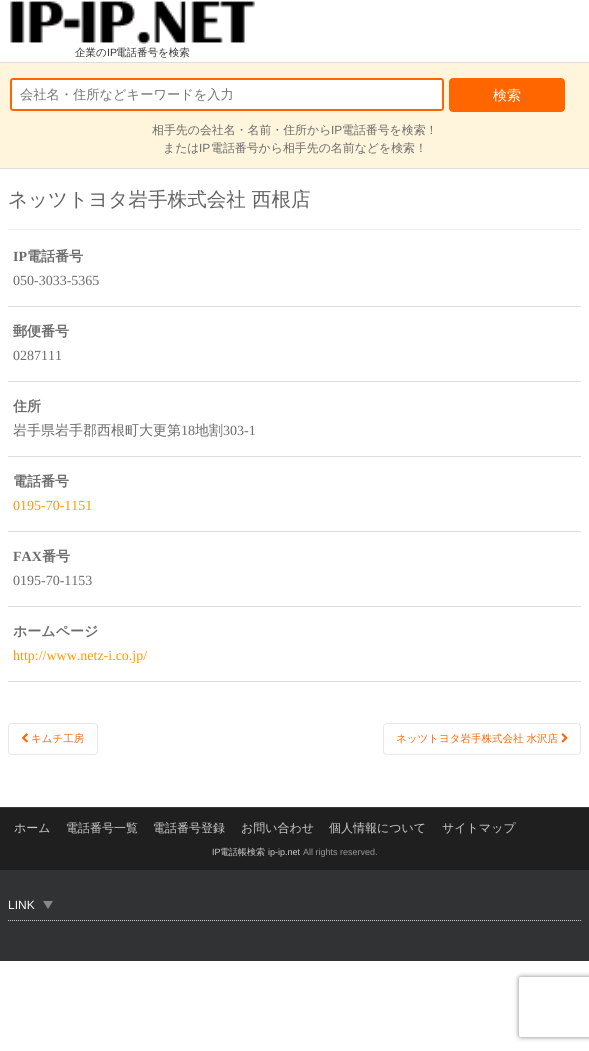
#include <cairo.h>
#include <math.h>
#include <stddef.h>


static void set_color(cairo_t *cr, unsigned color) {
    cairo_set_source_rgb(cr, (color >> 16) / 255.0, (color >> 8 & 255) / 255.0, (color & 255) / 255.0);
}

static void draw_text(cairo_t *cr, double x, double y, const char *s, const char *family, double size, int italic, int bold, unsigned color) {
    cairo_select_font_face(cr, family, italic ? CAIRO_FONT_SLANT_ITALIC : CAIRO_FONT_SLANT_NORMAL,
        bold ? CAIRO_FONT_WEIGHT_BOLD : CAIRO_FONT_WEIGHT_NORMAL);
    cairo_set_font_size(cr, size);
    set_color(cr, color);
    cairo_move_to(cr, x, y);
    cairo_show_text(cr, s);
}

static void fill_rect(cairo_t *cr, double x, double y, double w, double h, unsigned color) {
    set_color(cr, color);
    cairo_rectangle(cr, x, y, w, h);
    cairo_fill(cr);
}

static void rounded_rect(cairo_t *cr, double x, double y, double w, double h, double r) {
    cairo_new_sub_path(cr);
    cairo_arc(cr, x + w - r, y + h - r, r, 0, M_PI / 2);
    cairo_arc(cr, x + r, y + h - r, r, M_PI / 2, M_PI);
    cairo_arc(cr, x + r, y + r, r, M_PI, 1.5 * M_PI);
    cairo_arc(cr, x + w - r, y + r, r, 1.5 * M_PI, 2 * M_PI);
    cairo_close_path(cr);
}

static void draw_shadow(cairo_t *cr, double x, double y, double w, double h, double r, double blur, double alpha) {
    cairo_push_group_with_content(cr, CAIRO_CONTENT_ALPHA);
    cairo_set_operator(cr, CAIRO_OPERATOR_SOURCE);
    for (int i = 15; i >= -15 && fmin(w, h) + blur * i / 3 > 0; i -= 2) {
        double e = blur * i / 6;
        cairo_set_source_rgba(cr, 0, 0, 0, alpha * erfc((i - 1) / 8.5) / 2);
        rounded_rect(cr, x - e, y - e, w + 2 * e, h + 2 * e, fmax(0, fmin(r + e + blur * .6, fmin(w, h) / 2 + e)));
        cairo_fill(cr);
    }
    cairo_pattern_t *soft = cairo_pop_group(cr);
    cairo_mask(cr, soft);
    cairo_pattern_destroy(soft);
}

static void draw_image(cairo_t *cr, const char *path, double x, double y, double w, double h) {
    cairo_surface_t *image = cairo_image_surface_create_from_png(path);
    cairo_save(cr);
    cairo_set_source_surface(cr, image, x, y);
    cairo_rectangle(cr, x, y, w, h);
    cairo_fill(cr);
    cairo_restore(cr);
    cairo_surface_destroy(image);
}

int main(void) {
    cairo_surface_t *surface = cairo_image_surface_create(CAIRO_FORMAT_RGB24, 589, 1051);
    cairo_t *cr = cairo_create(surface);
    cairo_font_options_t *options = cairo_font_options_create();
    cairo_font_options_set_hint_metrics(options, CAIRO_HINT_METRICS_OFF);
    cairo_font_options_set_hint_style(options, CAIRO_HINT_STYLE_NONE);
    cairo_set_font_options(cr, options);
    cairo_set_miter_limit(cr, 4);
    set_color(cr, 0xFFFFFF);
    cairo_paint(cr);
    draw_image(cr, "assets/img1.png", 10, 1, 245, 43);
    draw_text(cr, 75, 56, "企業の", "WenQuanYi Zen Hei Medium", 10.5, 0, 0, 0x333333);
    draw_text(cr, 107, 56, "IP", "Liberation Sans", 10.5, 0, 0, 0x333333);
    draw_text(cr, 116, 56, "電話番号を検索", "WenQuanYi Zen Hei Medium", 10.5, 0, 0, 0x333333);
    fill_rect(cr, 0, 63, 589, 105, 0xFFF5DD);
    fill_rect(cr, 0, 62, 589, 1, 0xDDDDDD);
    fill_rect(cr, 0, 168, 589, 1, 0xDDDDDD);
    set_color(cr, 0xFFFFFF);
    rounded_rect(cr, 11, 79, 432, 31, 2);
    cairo_fill_preserve(cr);
    set_color(cr, 0xFF6600);
    cairo_stroke(cr);
    draw_text(cr, 20, 99, "会社名・住所などキーワードを入力", "WenQuanYi Zen Hei Medium", 13.25, 0, 0, 0x757575);
    set_color(cr, 0xFF6600);
    rounded_rect(cr, 449.5, 78.5, 115, 33, 3.5);
    cairo_fill_preserve(cr);
    cairo_set_line_width(cr, 1);
    cairo_stroke(cr);
    draw_text(cr, 493, 100, "検索", "WenQuanYi Zen Hei Medium", 14, 0, 0, 0xFFFFFF);
    draw_text(cr, 152, 134, "相手先の会社名・名前・住所から", "WenQuanYi Zen Hei Medium", 11.9, 0, 0, 0x6B6B6B);
    draw_text(cr, 331, 134, "IP", "Liberation Sans", 11.9, 0, 0, 0x6B6B6B);
    draw_text(cr, 342, 134, "電話番号を検索！", "WenQuanYi Zen Hei Medium", 11.9, 0, 0, 0x6B6B6B);
    draw_text(cr, 163, 152, "または", "WenQuanYi Zen Hei Medium", 11.9, 0, 0, 0x6B6B6B);
    draw_text(cr, 199, 152, "IP", "Liberation Sans", 11.9, 0, 0, 0x6B6B6B);
    draw_text(cr, 211, 152, "電話番号から相手先の名前などを検索！", "WenQuanYi Zen Hei Medium", 11.9, 0, 0, 0x6B6B6B);
    fill_rect(cr, 8, 229, 573, 1, 0xEEEEEE);
    draw_text(cr, 8, 206, "ネッツトヨタ岩手株式会社 西根店", "WenQuanYi Zen Hei Medium", 19.6, 0, 0, 0x636363);
    draw_text(cr, 13, 261, "IP", "Liberation Serif", 14, 0, 1, 0x6B6B6B);
    draw_text(cr, 27, 261, "電話番号", "WenQuanYi Zen Hei", 14, 0, 1, 0x6B6B6B);
    fill_rect(cr, 8, 306, 573, 1, 0xDDDDDD);
    draw_text(cr, 13, 285, "050-3033-5365", "Liberation Serif", 14, 0, 0, 0x6B6B6B);
    draw_text(cr, 13, 336, "郵便番号", "WenQuanYi Zen Hei", 14, 0, 1, 0x6B6B6B);
    fill_rect(cr, 8, 381, 573, 1, 0xDDDDDD);
    draw_text(cr, 13, 360, "0287111", "Liberation Serif", 14, 0, 0, 0x6B6B6B);
    draw_text(cr, 13, 411, "住所", "WenQuanYi Zen Hei", 14, 0, 1, 0x6B6B6B);
    fill_rect(cr, 8, 456, 573, 1, 0xDDDDDD);
    draw_text(cr, 13, 435, "岩手県岩手郡西根町大更第", "WenQuanYi Zen Hei Medium", 14, 0, 0, 0x6B6B6B);
    draw_text(cr, 181, 435, "18", "Liberation Serif", 14, 0, 0, 0x6B6B6B);
    draw_text(cr, 195, 435, "地割", "WenQuanYi Zen Hei Medium", 14, 0, 0, 0x6B6B6B);
    draw_text(cr, 223, 435, "303-1", "Liberation Serif", 14, 0, 0, 0x6B6B6B);
    draw_text(cr, 13, 486, "電話番号", "WenQuanYi Zen Hei", 14, 0, 1, 0x6B6B6B);
    fill_rect(cr, 8, 531, 573, 1, 0xDDDDDD);
    draw_text(cr, 13, 510, "0195-70-1151", "Liberation Serif", 14, 0, 0, 0xFF9900);
    draw_text(cr, 13, 561, "FAX", "Liberation Serif", 14, 0, 1, 0x6B6B6B);
    draw_text(cr, 42, 561, "番号", "WenQuanYi Zen Hei", 14, 0, 1, 0x6B6B6B);
    fill_rect(cr, 8, 606, 573, 1, 0xDDDDDD);
    draw_text(cr, 13, 585, "0195-70-1153", "Liberation Serif", 14, 0, 0, 0x6B6B6B);
    draw_text(cr, 13, 636, "ホームページ", "WenQuanYi Zen Hei", 14, 0, 1, 0x6B6B6B);
    fill_rect(cr, 8, 681, 573, 1, 0xDDDDDD);
    draw_text(cr, 13, 660, "http://www.netz-i.co.jp/", "Liberation Serif", 14, 0, 0, 0xFF9900);
    rounded_rect(cr, 8.5, 723.5, 89, 31, 3.5);
    set_color(cr, 0xE8E8E8);
    cairo_stroke(cr);
    draw_image(cr, "assets/img2.png", 22, 733, 6, 10);
    draw_text(cr, 31, 742, "キムチ工房", "WenQuanYi Zen Hei Medium", 10.5, 0, 0, 0xFF6600);
    rounded_rect(cr, 383.5, 723.5, 197, 31, 3.5);
    set_color(cr, 0xE8E8E8);
    cairo_stroke(cr);
    draw_text(cr, 396, 742, "ネッツトヨタ岩手株式会社 水沢店", "WenQuanYi Zen Hei Medium", 10.5, 0, 0, 0xFF6600);
    draw_image(cr, "assets/img3.png", 561, 733, 7, 10);
    fill_rect(cr, 0, 870, 589, 91, 0x313233);
    fill_rect(cr, 0, 808, 589, 62, 0x1F1F1F);
    fill_rect(cr, 0, 807, 589, 1, 0x3A3A3A);
    draw_text(cr, 14, 832, "ホーム", "WenQuanYi Zen Hei Medium", 12, 0, 0, 0xCCCCCC);
    draw_text(cr, 66, 832, "電話番号一覧", "WenQuanYi Zen Hei Medium", 12, 0, 0, 0xCCCCCC);
    draw_text(cr, 153, 832, "電話番号登録", "WenQuanYi Zen Hei Medium", 12, 0, 0, 0xCCCCCC);
    draw_text(cr, 241, 832, "お問い合わせ", "WenQuanYi Zen Hei Medium", 12, 0, 0, 0xCCCCCC);
    draw_text(cr, 329, 832, "個人情報について", "WenQuanYi Zen Hei Medium", 12, 0, 0, 0xCCCCCC);
    draw_text(cr, 442, 832, "サイトマップ", "WenQuanYi Zen Hei Medium", 12, 0, 0, 0xCCCCCC);
    draw_text(cr, 212, 855, "IP", "Liberation Sans", 9, 0, 0, 0xCCCCCC);
    draw_text(cr, 220, 855, "電話帳検索", "WenQuanYi Zen Hei Medium", 9, 0, 0, 0xCCCCCC);
    draw_text(cr, 268, 855, "ip-ip.net", "Liberation Sans", 9, 0, 0, 0xCCCCCC);
    draw_text(cr, 303, 855, "All rights reserved.", "Liberation Sans", 9, 0, 0, 0x999999);
    cairo_new_path(cr);
    cairo_move_to(cr, 8, 920.5);
    cairo_line_to(cr, 581, 920.5);
    set_color(cr, 0xCCCCCC);
    cairo_set_dash(cr, (double[]){1, 1}, 2, 0);
    cairo_stroke(cr);
    draw_text(cr, 8, 909, "LINK", "Liberation Sans", 12, 0, 0, 0xFFFFFF);
    set_color(cr, 0x888888);
    cairo_new_path(cr);
    cairo_move_to(cr, 43, 901);
    cairo_line_to(cr, 53, 901);
    cairo_line_to(cr, 48, 909);
    cairo_close_path(cr);
    cairo_fill(cr);
    cairo_save(cr);
    cairo_set_fill_rule(cr, CAIRO_FILL_RULE_EVEN_ODD);
    cairo_new_path(cr);
    cairo_move_to(cr, 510, 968);
    cairo_line_to(cr, 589, 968);
    cairo_line_to(cr, 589, 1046);
    cairo_line_to(cr, 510, 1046);
    cairo_close_path(cr);
    cairo_move_to(cr, 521, 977);
    cairo_line_to(cr, 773, 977);
    cairo_curve_to(cr, 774, 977, 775, 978, 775, 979);
    cairo_line_to(cr, 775, 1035);
    cairo_curve_to(cr, 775, 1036, 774, 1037, 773, 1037);
    cairo_line_to(cr, 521, 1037);
    cairo_curve_to(cr, 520, 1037, 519, 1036, 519, 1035);
    cairo_line_to(cr, 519, 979);
    cairo_curve_to(cr, 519, 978, 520, 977, 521, 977);
    cairo_close_path(cr);
    cairo_clip(cr);
    set_color(cr, 0x808080);
    draw_shadow(cr, 519, 977, 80, 60, 2, 2.5, 1);
    cairo_restore(cr);
    cairo_surface_write_to_png(surface, "output.png");
    cairo_font_options_destroy(options);
    cairo_destroy(cr);
    cairo_surface_destroy(surface);
    return 0;
}
